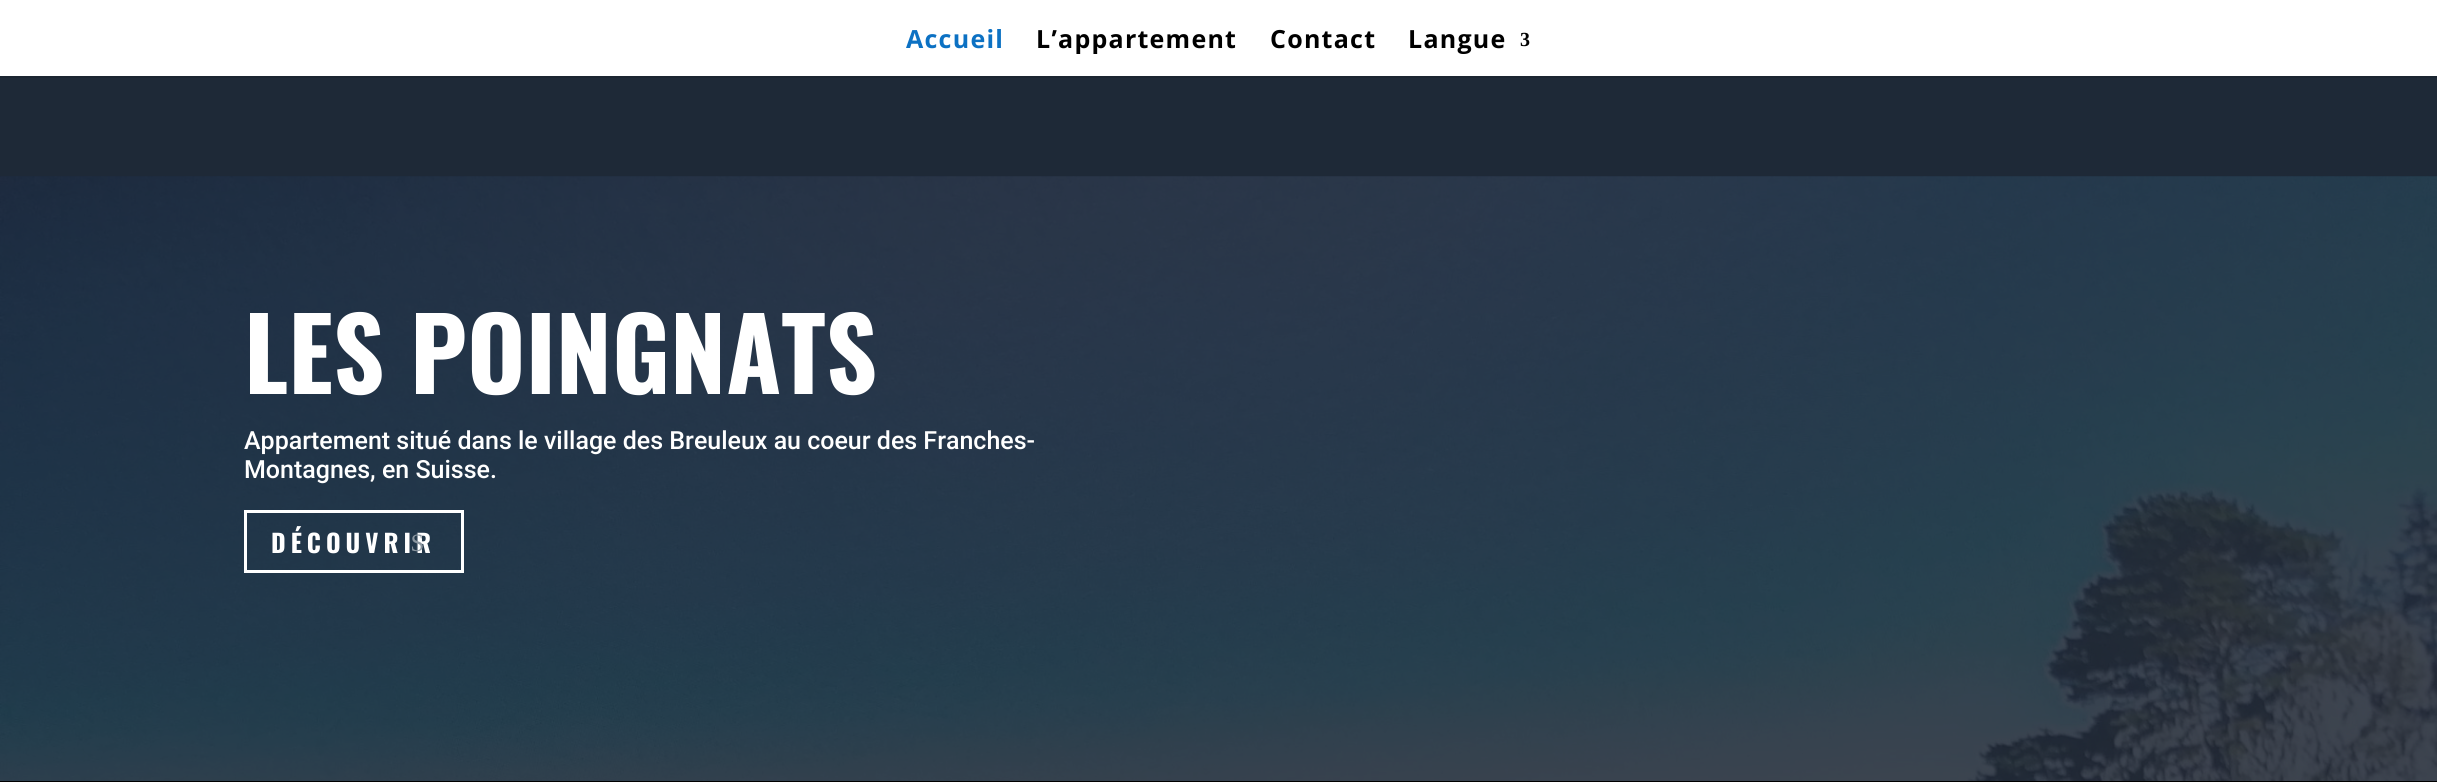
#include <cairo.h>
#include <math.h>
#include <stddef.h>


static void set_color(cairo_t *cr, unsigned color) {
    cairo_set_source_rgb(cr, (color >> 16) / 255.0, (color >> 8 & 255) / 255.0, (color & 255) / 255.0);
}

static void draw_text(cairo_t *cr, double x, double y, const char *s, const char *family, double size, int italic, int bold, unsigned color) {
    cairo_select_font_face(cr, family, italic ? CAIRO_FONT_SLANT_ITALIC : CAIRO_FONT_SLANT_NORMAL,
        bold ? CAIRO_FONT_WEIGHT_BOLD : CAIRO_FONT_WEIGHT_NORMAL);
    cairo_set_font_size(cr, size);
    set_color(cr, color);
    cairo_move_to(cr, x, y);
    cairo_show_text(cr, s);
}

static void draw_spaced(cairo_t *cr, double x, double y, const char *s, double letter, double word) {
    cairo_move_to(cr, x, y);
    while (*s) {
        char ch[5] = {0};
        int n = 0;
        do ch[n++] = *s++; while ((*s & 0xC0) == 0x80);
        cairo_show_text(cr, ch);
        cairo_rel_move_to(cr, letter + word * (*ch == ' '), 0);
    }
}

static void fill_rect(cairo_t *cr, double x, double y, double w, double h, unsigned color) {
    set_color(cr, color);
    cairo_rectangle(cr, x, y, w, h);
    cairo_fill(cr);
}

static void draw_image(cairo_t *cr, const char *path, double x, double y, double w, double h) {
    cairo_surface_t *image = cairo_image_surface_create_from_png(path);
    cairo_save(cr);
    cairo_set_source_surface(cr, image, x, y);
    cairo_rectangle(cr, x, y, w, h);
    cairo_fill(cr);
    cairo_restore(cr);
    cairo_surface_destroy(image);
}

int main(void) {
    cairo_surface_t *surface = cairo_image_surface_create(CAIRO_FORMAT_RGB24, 2437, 782);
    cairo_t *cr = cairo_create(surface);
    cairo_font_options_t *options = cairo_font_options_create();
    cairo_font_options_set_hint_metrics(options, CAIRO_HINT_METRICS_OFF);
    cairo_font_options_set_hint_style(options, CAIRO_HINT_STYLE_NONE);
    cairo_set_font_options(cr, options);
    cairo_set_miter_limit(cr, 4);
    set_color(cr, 0x1E2937);
    cairo_paint(cr);
    set_color(cr, 0x1B2531);
    cairo_new_path(cr);
    cairo_move_to(cr, 0, 76);
    cairo_line_to(cr, 0, 78);
    cairo_line_to(cr, 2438, 78);
    cairo_line_to(cr, 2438, 1);
    cairo_line_to(cr, 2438, 76);
    cairo_close_path(cr);
    cairo_fill(cr);
    fill_rect(cr, 0, 0, 2437, 76, 0xFFFFFF);
    cairo_select_font_face(cr, "Open Sans", CAIRO_FONT_SLANT_NORMAL, CAIRO_FONT_WEIGHT_BOLD);
    cairo_set_font_size(cr, 25);
    set_color(cr, 0x0C71C3);
    draw_spaced(cr, 906, 48, "Accueil", 1.25, 0);
    set_color(cr, 0x000000);
    draw_spaced(cr, 1036, 48, "L’appartement", 1.25, 0);
    draw_spaced(cr, 1270, 48, "Contact", 1.25, 0);
    draw_spaced(cr, 1408, 48, "Langue", 1.25, 0);
    cairo_select_font_face(cr, "Liberation Serif", CAIRO_FONT_SLANT_NORMAL, CAIRO_FONT_WEIGHT_BOLD);
    cairo_set_font_size(cr, 20);
    draw_spaced(cr, 1520, 46, "3", 1.25, 0);
    draw_image(cr, "assets/img1.png", 0, 176, 2437, 605);
    draw_text(cr, 244, 394, "LES POINGNATS", "Oswald", 100, 0, 1, 0xFFFFFF);
    draw_text(cr, 244, 449, "Appartement situé dans le village des Breuleux au coeur des Franches-", "Roboto Medium", 25, 0, 0, 0xFFFFFF);
    draw_text(cr, 244, 478, "Montagnes, en Suisse.", "Roboto Medium", 25, 0, 0, 0xFFFFFF);
    cairo_rectangle(cr, 245.5, 511.5, 217, 60);
    cairo_set_line_width(cr, 3);
    cairo_stroke(cr);
    cairo_select_font_face(cr, "Oswald", CAIRO_FONT_SLANT_NORMAL, CAIRO_FONT_WEIGHT_BOLD);
    draw_spaced(cr, 271, 553, "DÉCOUVRIR", 5, 0);
    cairo_select_font_face(cr, "Liberation Serif", CAIRO_FONT_SLANT_NORMAL, CAIRO_FONT_WEIGHT_NORMAL);
    set_color(cr, 0x8B96A0);
    draw_spaced(cr, 411, 551, "$", 5, 0);
    fill_rect(cr, 0, 781, 2437, 1, 0x000000);
    cairo_surface_write_to_png(surface, "output.png");
    cairo_font_options_destroy(options);
    cairo_destroy(cr);
    cairo_surface_destroy(surface);
    return 0;
}
